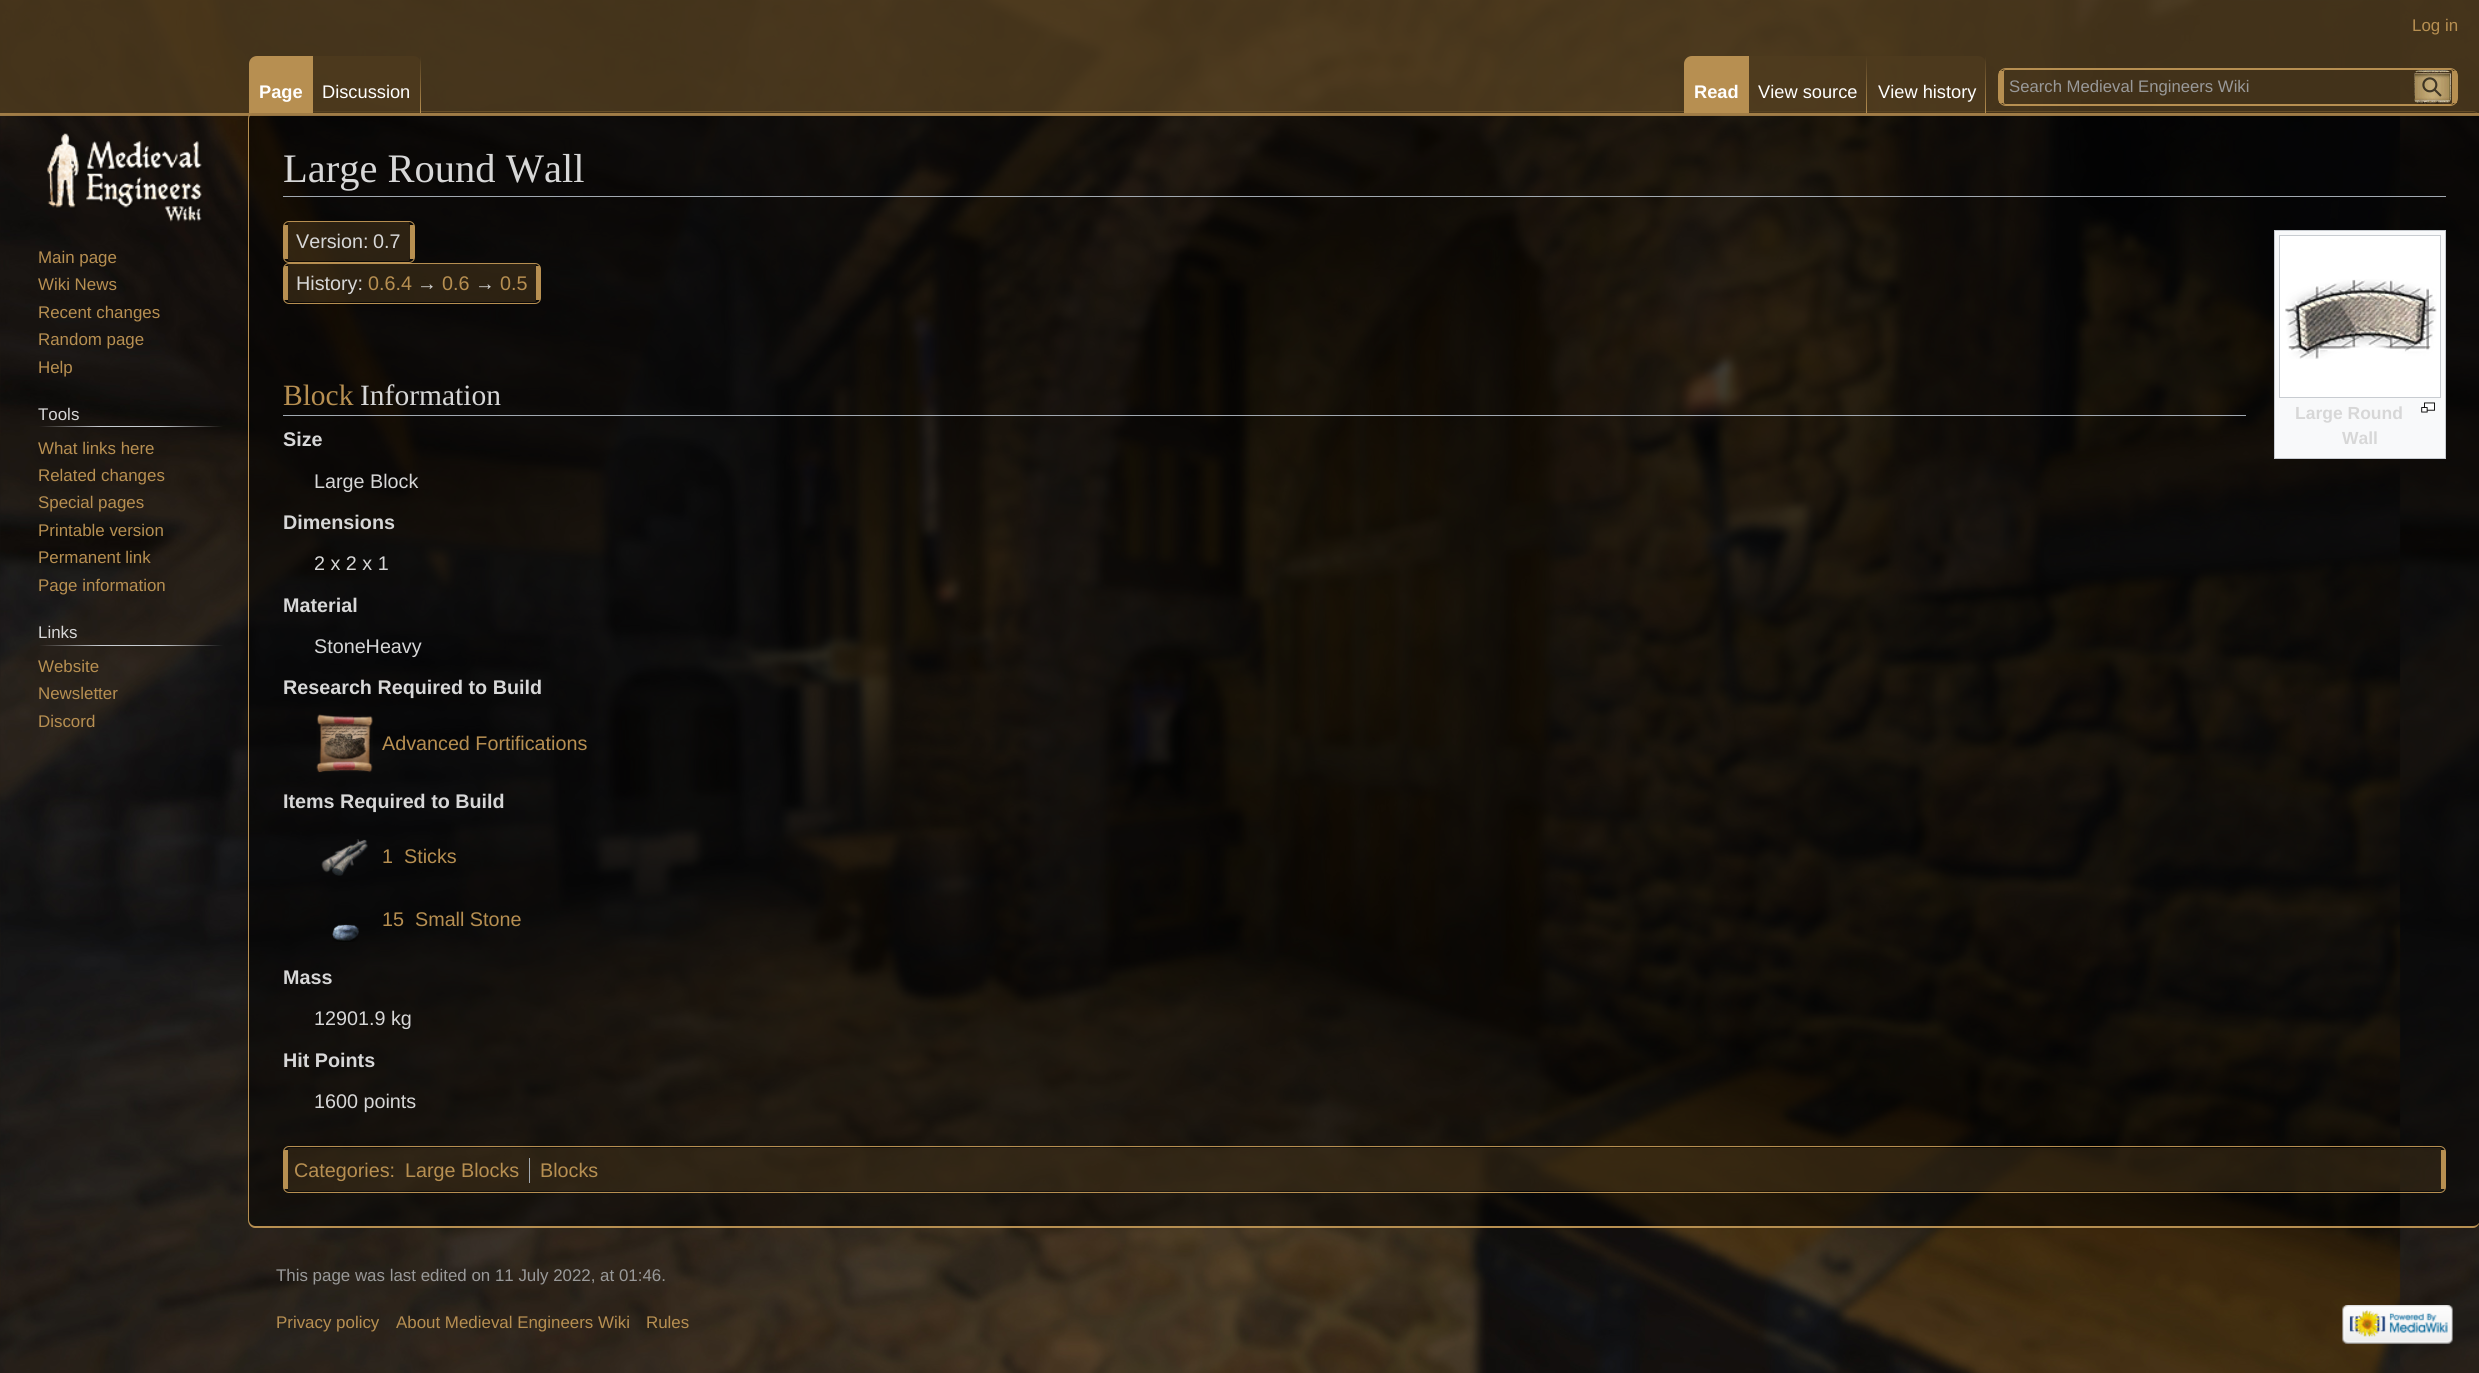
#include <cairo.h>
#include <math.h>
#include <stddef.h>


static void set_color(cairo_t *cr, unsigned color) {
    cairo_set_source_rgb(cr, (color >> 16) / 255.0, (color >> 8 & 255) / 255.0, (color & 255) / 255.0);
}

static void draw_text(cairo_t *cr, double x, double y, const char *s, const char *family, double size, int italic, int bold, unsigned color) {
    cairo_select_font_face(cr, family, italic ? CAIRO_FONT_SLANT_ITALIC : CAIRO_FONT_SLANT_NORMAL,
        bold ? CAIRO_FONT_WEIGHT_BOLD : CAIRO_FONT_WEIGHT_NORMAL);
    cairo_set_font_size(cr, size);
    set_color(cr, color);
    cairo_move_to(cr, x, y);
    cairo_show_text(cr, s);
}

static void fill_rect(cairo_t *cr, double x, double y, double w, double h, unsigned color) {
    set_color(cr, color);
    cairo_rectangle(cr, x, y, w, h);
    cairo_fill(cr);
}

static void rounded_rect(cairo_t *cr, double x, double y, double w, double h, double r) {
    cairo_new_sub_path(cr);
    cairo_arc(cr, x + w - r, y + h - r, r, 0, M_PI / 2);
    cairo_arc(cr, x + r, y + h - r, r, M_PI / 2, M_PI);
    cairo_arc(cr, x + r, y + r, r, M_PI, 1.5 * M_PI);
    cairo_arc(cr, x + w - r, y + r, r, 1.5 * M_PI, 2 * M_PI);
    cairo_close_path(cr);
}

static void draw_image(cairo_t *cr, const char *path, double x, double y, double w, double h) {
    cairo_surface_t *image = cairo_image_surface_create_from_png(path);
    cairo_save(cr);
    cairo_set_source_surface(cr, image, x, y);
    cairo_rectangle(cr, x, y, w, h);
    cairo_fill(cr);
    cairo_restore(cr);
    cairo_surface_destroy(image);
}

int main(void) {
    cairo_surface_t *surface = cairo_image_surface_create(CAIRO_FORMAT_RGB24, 2479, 1373);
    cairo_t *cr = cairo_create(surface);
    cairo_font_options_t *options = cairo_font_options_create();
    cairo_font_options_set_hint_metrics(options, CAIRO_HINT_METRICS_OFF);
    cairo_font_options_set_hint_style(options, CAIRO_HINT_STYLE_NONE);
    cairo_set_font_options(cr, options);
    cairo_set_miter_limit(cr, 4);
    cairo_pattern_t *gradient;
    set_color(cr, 0xFFFFFF);
    cairo_paint(cr);
    draw_image(cr, "assets/img1.png", 0, 0, 2479, 1373);
    cairo_set_source_rgba(cr, 0, 0, 0, 0.5);
    cairo_new_path(cr);
    cairo_move_to(cr, 255, 112);
    cairo_line_to(cr, 2473, 112);
    cairo_curve_to(cr, 2477, 112, 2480, 115, 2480, 119);
    cairo_line_to(cr, 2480, 1220);
    cairo_curve_to(cr, 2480, 1223, 2477, 1226, 2473, 1226);
    cairo_line_to(cr, 255, 1226);
    cairo_curve_to(cr, 252, 1226, 249, 1223, 249, 1220);
    cairo_line_to(cr, 249, 119);
    cairo_curve_to(cr, 249, 115, 252, 112, 255, 112);
    cairo_close_path(cr);
    cairo_fill(cr);
    set_color(cr, 0xB78F51);
    cairo_set_fill_rule(cr, CAIRO_FILL_RULE_EVEN_ODD);
    cairo_new_path(cr);
    cairo_move_to(cr, 255, 111);
    cairo_line_to(cr, 2473, 111);
    cairo_curve_to(cr, 2477, 111, 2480, 115, 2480, 119);
    cairo_line_to(cr, 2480, 1220);
    cairo_curve_to(cr, 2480, 1224, 2477, 1228, 2473, 1228);
    cairo_line_to(cr, 255, 1228);
    cairo_curve_to(cr, 251, 1228, 248, 1224, 248, 1220);
    cairo_line_to(cr, 248, 119);
    cairo_curve_to(cr, 248, 115, 251, 111, 255, 111);
    cairo_close_path(cr);
    cairo_move_to(cr, 255, 112);
    cairo_line_to(cr, 2473, 112);
    cairo_curve_to(cr, 2477, 112, 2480, 115, 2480, 119);
    cairo_line_to(cr, 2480, 1220);
    cairo_curve_to(cr, 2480, 1223, 2477, 1226, 2473, 1226);
    cairo_line_to(cr, 255, 1226);
    cairo_curve_to(cr, 252, 1226, 249, 1223, 249, 1220);
    cairo_line_to(cr, 249, 119);
    cairo_curve_to(cr, 249, 115, 252, 112, 255, 112);
    cairo_close_path(cr);
    cairo_fill(cr);
    cairo_set_source_rgba(cr, 0.314, 0.235, 0.118, 0.8);
    cairo_rectangle(cr, 0, 0, 2479, 115);
    cairo_fill(cr);
    cairo_set_source_rgba(cr, 0.718, 0.561, 0.318, 0.8);
    cairo_rectangle(cr, 0, 113, 2479, 3);
    cairo_fill(cr);
    draw_text(cr, 2412, 31, "Log in", "Liberation Sans", 16.9, 0, 0, 0xB78F51);
    cairo_new_path(cr);
    cairo_move_to(cr, 257, 56);
    cairo_line_to(cr, 313, 56);
    cairo_line_to(cr, 313, 113);
    cairo_line_to(cr, 249, 113);
    cairo_line_to(cr, 249, 64);
    cairo_curve_to(cr, 249, 59.5, 252.5, 56, 257, 56);
    cairo_close_path(cr);
    cairo_fill(cr);
    draw_text(cr, 259, 98, "Page", "Liberation Sans", 18.25, 0, 1, 0xFFFFFF);
    cairo_set_source_rgba(cr, 0.314, 0.235, 0.118, 0.6);
    cairo_new_path(cr);
    cairo_move_to(cr, 313, 56);
    cairo_line_to(cr, 413, 56);
    cairo_curve_to(cr, 417.5, 56, 421, 59.5, 421, 64);
    cairo_line_to(cr, 421, 113);
    cairo_line_to(cr, 313, 113);
    cairo_close_path(cr);
    cairo_fill(cr);
    gradient = cairo_pattern_create_linear(421, 56, 421, 113);
    cairo_pattern_add_color_stop_rgba(gradient, 0, 0.718, 0.561, 0.318, 0);
    cairo_pattern_add_color_stop_rgba(gradient, 1, 0.718, 0.561, 0.318, 1);
    cairo_set_source(cr, gradient);
    cairo_pattern_destroy(gradient);
    cairo_rectangle(cr, 420, 56, 1, 57);
    cairo_fill(cr);
    draw_text(cr, 322, 98, "Discussion", "Liberation Sans", 18.25, 0, 0, 0xFFFFFF);
    set_color(cr, 0xB78F51);
    cairo_new_path(cr);
    cairo_move_to(cr, 1692, 56);
    cairo_line_to(cr, 1749, 56);
    cairo_line_to(cr, 1749, 113);
    cairo_line_to(cr, 1684, 113);
    cairo_line_to(cr, 1684, 64);
    cairo_curve_to(cr, 1684, 59.5, 1687.5, 56, 1692, 56);
    cairo_close_path(cr);
    cairo_fill(cr);
    draw_text(cr, 1694, 98, "Read", "Liberation Sans", 18.25, 0, 1, 0xFFFFFF);
    cairo_set_source_rgba(cr, 0.314, 0.235, 0.118, 0.6);
    cairo_rectangle(cr, 1749, 56, 119, 57);
    cairo_fill(cr);
    gradient = cairo_pattern_create_linear(1867, 56, 1867, 113);
    cairo_pattern_add_color_stop_rgba(gradient, 0, 0.718, 0.561, 0.318, 0);
    cairo_pattern_add_color_stop_rgba(gradient, 1, 0.718, 0.561, 0.318, 1);
    cairo_set_source(cr, gradient);
    cairo_pattern_destroy(gradient);
    cairo_rectangle(cr, 1866, 56, 1, 57);
    cairo_fill(cr);
    draw_text(cr, 1758, 98, "View source", "Liberation Sans", 18.25, 0, 0, 0xFFFFFF);
    cairo_set_source_rgba(cr, 0.314, 0.235, 0.118, 0.6);
    cairo_new_path(cr);
    cairo_move_to(cr, 1868, 56);
    cairo_line_to(cr, 1978, 56);
    cairo_curve_to(cr, 1982.5, 56, 1986, 59.5, 1986, 64);
    cairo_line_to(cr, 1986, 113);
    cairo_line_to(cr, 1868, 113);
    cairo_close_path(cr);
    cairo_fill(cr);
    gradient = cairo_pattern_create_linear(1986, 56, 1986, 113);
    cairo_pattern_add_color_stop_rgba(gradient, 0, 0.718, 0.561, 0.318, 0);
    cairo_pattern_add_color_stop_rgba(gradient, 1, 0.718, 0.561, 0.318, 1);
    cairo_set_source(cr, gradient);
    cairo_pattern_destroy(gradient);
    cairo_rectangle(cr, 1985, 56, 1, 57);
    cairo_fill(cr);
    draw_text(cr, 1878, 98, "View history", "Liberation Sans", 18.25, 0, 0, 0xFFFFFF);
    rounded_rect(cr, 1998.5, 68.5, 459, 37, 7.5);
    set_color(cr, 0xB78F51);
    cairo_set_line_width(cr, 1);
    cairo_stroke(cr);
    fill_rect(cr, 2453, 71, 4, 32, 0xB78F51);
    fill_rect(cr, 1999, 71, 4, 32, 0xB78F51);
    rounded_rect(cr, 2003.5, 69.5, 449, 35, 2);
    cairo_stroke(cr);
    draw_image(cr, "assets/img2.png", 2414, 70, 37, 34);
    draw_text(cr, 2009, 92, "Search Medieval Engineers Wiki", "Liberation Sans", 16.7, 0, 0, 0x999999);
    draw_image(cr, "assets/img3.png", 2422, 77, 20, 20);
    draw_image(cr, "assets/img4.png", 47, 133, 156, 89);
    draw_text(cr, 38, 263, "Main page", "Liberation Sans", 16.9, 0, 0, 0xB78F51);
    draw_text(cr, 38, 290, "Wiki News", "Liberation Sans", 16.9, 0, 0, 0xB78F51);
    draw_text(cr, 38, 318, "Recent changes", "Liberation Sans", 16.9, 0, 0, 0xB78F51);
    draw_text(cr, 38, 345, "Random page", "Liberation Sans", 16.9, 0, 0, 0xB78F51);
    draw_text(cr, 38, 373, "Help", "Liberation Sans", 16.9, 0, 0, 0xB78F51);
    draw_text(cr, 38, 420, "Tools", "Liberation Sans", 16.9, 0, 0, 0xD7D7D7);
    draw_text(cr, 38, 454, "What links here", "Liberation Sans", 16.9, 0, 0, 0xB78F51);
    draw_text(cr, 38, 481, "Related changes", "Liberation Sans", 16.9, 0, 0, 0xB78F51);
    draw_text(cr, 38, 508, "Special pages", "Liberation Sans", 16.9, 0, 0, 0xB78F51);
    draw_text(cr, 38, 536, "Printable version", "Liberation Sans", 16.9, 0, 0, 0xB78F51);
    draw_text(cr, 38, 563, "Permanent link", "Liberation Sans", 16.9, 0, 0, 0xB78F51);
    draw_text(cr, 38, 591, "Page information", "Liberation Sans", 16.9, 0, 0, 0xB78F51);
    draw_text(cr, 38, 638, "Links", "Liberation Sans", 16.9, 0, 0, 0xD7D7D7);
    draw_text(cr, 38, 672, "Website", "Liberation Sans", 16.9, 0, 0, 0xB78F51);
    draw_text(cr, 38, 699, "Newsletter", "Liberation Sans", 16.9, 0, 0, 0xB78F51);
    draw_text(cr, 38, 727, "Discord", "Liberation Sans", 16.9, 0, 0, 0xB78F51);
    fill_rect(cr, 283, 196, 2163, 1, 0xA2A9B1);
    draw_text(cr, 283, 182, "Large Round Wall", "Liberation Serif", 40.5, 0, 0, 0xD7D7D7);
    cairo_set_source_rgba(cr, 0.314, 0.235, 0.118, 0.5);
    cairo_set_fill_rule(cr, CAIRO_FILL_RULE_WINDING);
    cairo_new_path(cr);
    cairo_move_to(cr, 289, 222);
    cairo_line_to(cr, 409, 222);
    cairo_curve_to(cr, 409, 222, 410, 225, 410, 228);
    cairo_line_to(cr, 410, 256);
    cairo_curve_to(cr, 410, 259, 409, 261, 409, 261);
    cairo_line_to(cr, 289, 261);
    cairo_curve_to(cr, 288, 261, 288, 259, 288, 256);
    cairo_line_to(cr, 288, 228);
    cairo_curve_to(cr, 288, 225, 288, 222, 289, 222);
    cairo_close_path(cr);
    cairo_fill(cr);
    rounded_rect(cr, 283.5, 221.5, 131, 41, 5.5);
    set_color(cr, 0xB78F51);
    cairo_stroke(cr);
    fill_rect(cr, 410, 225, 4, 34, 0xB78F51);
    fill_rect(cr, 284, 225, 4, 34, 0xB78F51);
    draw_text(cr, 296, 248, "Version:", "Liberation Sans", 19.75, 0, 0, 0xD7D7D7);
    draw_text(cr, 373, 248, "0.7", "Liberation Sans", 19.75, 0, 0, 0xD7D7D7);
    cairo_set_source_rgba(cr, 0.314, 0.235, 0.118, 0.5);
    cairo_new_path(cr);
    cairo_move_to(cr, 289, 264);
    cairo_line_to(cr, 535, 264);
    cairo_curve_to(cr, 536, 264, 536, 266, 536, 269);
    cairo_line_to(cr, 536, 297);
    cairo_curve_to(cr, 536, 300, 536, 302, 535, 302);
    cairo_line_to(cr, 289, 302);
    cairo_curve_to(cr, 288, 302, 288, 300, 288, 297);
    cairo_line_to(cr, 288, 269);
    cairo_curve_to(cr, 288, 266, 288, 264, 289, 264);
    cairo_close_path(cr);
    cairo_fill(cr);
    rounded_rect(cr, 283.5, 263.5, 257, 40, 5.5);
    set_color(cr, 0xB78F51);
    cairo_stroke(cr);
    fill_rect(cr, 536, 266, 4, 34, 0xB78F51);
    fill_rect(cr, 284, 266, 4, 34, 0xB78F51);
    draw_text(cr, 296, 290, "History:", "Liberation Sans", 19.75, 0, 0, 0xD7D7D7);
    draw_text(cr, 368, 290, "0.6.4", "Liberation Sans", 19.75, 0, 0, 0xB78F51);
    draw_text(cr, 417, 290, "→", "Liberation Sans", 19.75, 0, 0, 0xD7D7D7);
    draw_text(cr, 442, 290, "0.6", "Liberation Sans", 19.75, 0, 0, 0xB78F51);
    draw_text(cr, 475, 290, "→", "Liberation Sans", 19.75, 0, 0, 0xD7D7D7);
    draw_text(cr, 500, 290, "0.5", "Liberation Sans", 19.75, 0, 0, 0xB78F51);
    fill_rect(cr, 283, 415, 1963, 1, 0xA2A9B1);
    draw_text(cr, 283, 405, "Block", "Liberation Serif", 29.5, 0, 0, 0xB78F51);
    draw_text(cr, 360, 405, "Information", "Liberation Serif", 29.5, 0, 0, 0xD7D7D7);
    draw_text(cr, 283, 446, "Size", "Liberation Sans", 19.75, 0, 1, 0xD7D7D7);
    fill_rect(cr, 2275, 231, 170, 227, 0xF8F9FA);
    fill_rect(cr, 2274, 230, 172, 1, 0xC8CCD1);
    fill_rect(cr, 2274, 458, 172, 1, 0xC8CCD1);
    fill_rect(cr, 2445, 230, 1, 229, 0xC8CCD1);
    fill_rect(cr, 2274, 230, 1, 229, 0xC8CCD1);
    set_color(cr, 0xFFFFFF);
    cairo_rectangle(cr, 2279.5, 235.5, 161, 162);
    cairo_fill_preserve(cr);
    set_color(cr, 0xC8CCD1);
    cairo_stroke(cr);
    draw_image(cr, "assets/img5.png", 2285, 279, 152, 80);
    draw_image(cr, "assets/img6.png", 2421, 402, 14, 11);
    draw_text(cr, 2295, 419, "Large Round", "Liberation Sans", 17.5, 0, 1, 0xD7D7D7);
    draw_text(cr, 2342, 444, "Wall", "Liberation Sans", 17.5, 0, 1, 0xD7D7D7);
    draw_text(cr, 314, 488, "Large Block", "Liberation Sans", 19.75, 0, 0, 0xD7D7D7);
    draw_text(cr, 283, 529, "Dimensions", "Liberation Sans", 19.75, 0, 1, 0xD7D7D7);
    draw_text(cr, 314, 570, "2 x 2 x 1", "Liberation Sans", 19.75, 0, 0, 0xD7D7D7);
    draw_text(cr, 283, 612, "Material", "Liberation Sans", 19.75, 0, 1, 0xD7D7D7);
    draw_text(cr, 314, 653, "StoneHeavy", "Liberation Sans", 19.75, 0, 0, 0xD7D7D7);
    draw_text(cr, 283, 694, "Research Required to Build", "Liberation Sans", 19.75, 0, 1, 0xD7D7D7);
    draw_image(cr, "assets/img7.png", 316, 714, 57, 59);
    draw_text(cr, 382, 750, "Advanced Fortifications", "Liberation Sans", 19.75, 0, 0, 0xB78F51);
    draw_text(cr, 283, 808, "Items Required to Build", "Liberation Sans", 19.75, 0, 1, 0xD7D7D7);
    draw_image(cr, "assets/img8.png", 321, 839, 47, 37);
    draw_text(cr, 382, 863, "1", "Liberation Sans", 19.75, 0, 0, 0xB78F51);
    draw_text(cr, 404, 863, "Sticks", "Liberation Sans", 19.75, 0, 0, 0xB78F51);
    draw_text(cr, 382, 926, "15", "Liberation Sans", 19.75, 0, 0, 0xB78F51);
    draw_text(cr, 415, 926, "Small Stone", "Liberation Sans", 19.75, 0, 0, 0xB78F51);
    draw_image(cr, "assets/img9.png", 332, 924, 27, 18);
    draw_text(cr, 283, 984, "Mass", "Liberation Sans", 19.75, 0, 1, 0xD7D7D7);
    draw_text(cr, 314, 1025, "12901.9 kg", "Liberation Sans", 19.75, 0, 0, 0xD7D7D7);
    draw_text(cr, 283, 1067, "Hit Points", "Liberation Sans", 19.75, 0, 1, 0xD7D7D7);
    draw_text(cr, 314, 1108, "1600 points", "Liberation Sans", 19.75, 0, 0, 0xD7D7D7);
    cairo_set_source_rgba(cr, 0.314, 0.235, 0.118, 0.4);
    cairo_new_path(cr);
    cairo_move_to(cr, 289, 1148);
    cairo_line_to(cr, 2440, 1148);
    cairo_curve_to(cr, 2441, 1148, 2441, 1150, 2441, 1153);
    cairo_line_to(cr, 2441, 1186);
    cairo_curve_to(cr, 2441, 1189, 2441, 1191, 2440, 1191);
    cairo_line_to(cr, 289, 1191);
    cairo_curve_to(cr, 288, 1191, 288, 1189, 288, 1186);
    cairo_line_to(cr, 288, 1153);
    cairo_curve_to(cr, 288, 1150, 288, 1148, 289, 1148);
    cairo_close_path(cr);
    cairo_fill(cr);
    rounded_rect(cr, 283.5, 1146.5, 2162, 46, 5.5);
    set_color(cr, 0xB78F51);
    cairo_stroke(cr);
    fill_rect(cr, 2441, 1150, 4, 39, 0xB78F51);
    fill_rect(cr, 284, 1150, 4, 39, 0xB78F51);
    draw_text(cr, 294, 1177, "Categories:", "Liberation Sans", 19.75, 0, 0, 0xB78F51);
    draw_text(cr, 405, 1177, "Large Blocks", "Liberation Sans", 19.75, 0, 0, 0xB78F51);
    fill_rect(cr, 529, 1158, 1, 25, 0xA2A9B1);
    draw_text(cr, 540, 1177, "Blocks", "Liberation Sans", 19.75, 0, 0, 0xB78F51);
    draw_text(cr, 276, 1281, "This page was last edited on 11 July 2022, at 01:46.", "Liberation Sans", 16.9, 0, 0, 0x999999);
    draw_text(cr, 276, 1328, "Privacy policy", "Liberation Sans", 16.9, 0, 0, 0xB78F51);
    draw_text(cr, 396, 1328, "About Medieval Engineers Wiki", "Liberation Sans", 16.9, 0, 0, 0xB78F51);
    draw_text(cr, 646, 1328, "Rules", "Liberation Sans", 16.9, 0, 0, 0xB78F51);
    draw_image(cr, "assets/img10.png", 2342, 1305, 111, 39);
    cairo_surface_write_to_png(surface, "output.png");
    cairo_font_options_destroy(options);
    cairo_destroy(cr);
    cairo_surface_destroy(surface);
    return 0;
}
